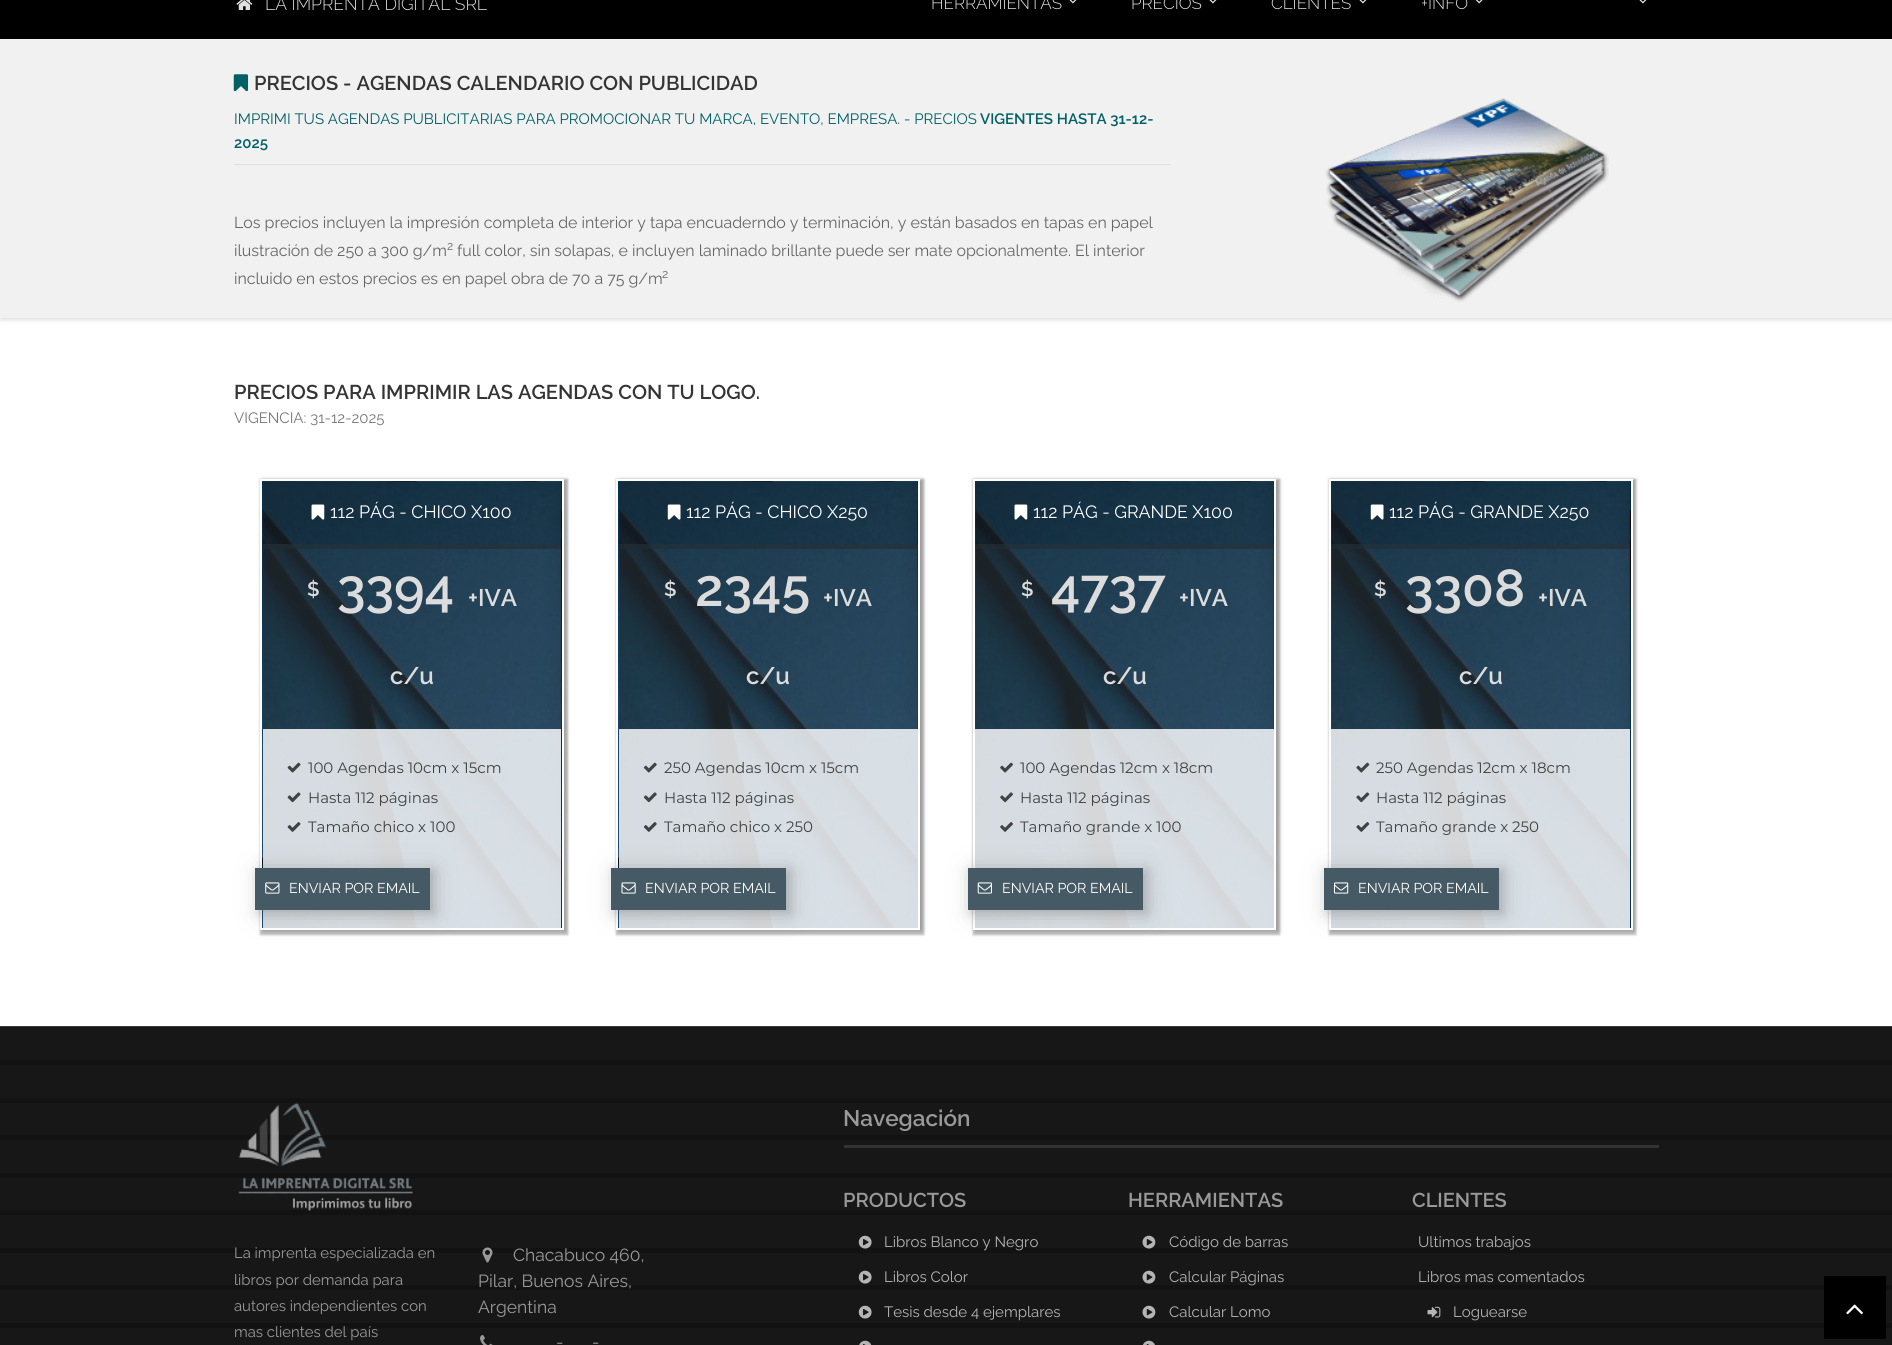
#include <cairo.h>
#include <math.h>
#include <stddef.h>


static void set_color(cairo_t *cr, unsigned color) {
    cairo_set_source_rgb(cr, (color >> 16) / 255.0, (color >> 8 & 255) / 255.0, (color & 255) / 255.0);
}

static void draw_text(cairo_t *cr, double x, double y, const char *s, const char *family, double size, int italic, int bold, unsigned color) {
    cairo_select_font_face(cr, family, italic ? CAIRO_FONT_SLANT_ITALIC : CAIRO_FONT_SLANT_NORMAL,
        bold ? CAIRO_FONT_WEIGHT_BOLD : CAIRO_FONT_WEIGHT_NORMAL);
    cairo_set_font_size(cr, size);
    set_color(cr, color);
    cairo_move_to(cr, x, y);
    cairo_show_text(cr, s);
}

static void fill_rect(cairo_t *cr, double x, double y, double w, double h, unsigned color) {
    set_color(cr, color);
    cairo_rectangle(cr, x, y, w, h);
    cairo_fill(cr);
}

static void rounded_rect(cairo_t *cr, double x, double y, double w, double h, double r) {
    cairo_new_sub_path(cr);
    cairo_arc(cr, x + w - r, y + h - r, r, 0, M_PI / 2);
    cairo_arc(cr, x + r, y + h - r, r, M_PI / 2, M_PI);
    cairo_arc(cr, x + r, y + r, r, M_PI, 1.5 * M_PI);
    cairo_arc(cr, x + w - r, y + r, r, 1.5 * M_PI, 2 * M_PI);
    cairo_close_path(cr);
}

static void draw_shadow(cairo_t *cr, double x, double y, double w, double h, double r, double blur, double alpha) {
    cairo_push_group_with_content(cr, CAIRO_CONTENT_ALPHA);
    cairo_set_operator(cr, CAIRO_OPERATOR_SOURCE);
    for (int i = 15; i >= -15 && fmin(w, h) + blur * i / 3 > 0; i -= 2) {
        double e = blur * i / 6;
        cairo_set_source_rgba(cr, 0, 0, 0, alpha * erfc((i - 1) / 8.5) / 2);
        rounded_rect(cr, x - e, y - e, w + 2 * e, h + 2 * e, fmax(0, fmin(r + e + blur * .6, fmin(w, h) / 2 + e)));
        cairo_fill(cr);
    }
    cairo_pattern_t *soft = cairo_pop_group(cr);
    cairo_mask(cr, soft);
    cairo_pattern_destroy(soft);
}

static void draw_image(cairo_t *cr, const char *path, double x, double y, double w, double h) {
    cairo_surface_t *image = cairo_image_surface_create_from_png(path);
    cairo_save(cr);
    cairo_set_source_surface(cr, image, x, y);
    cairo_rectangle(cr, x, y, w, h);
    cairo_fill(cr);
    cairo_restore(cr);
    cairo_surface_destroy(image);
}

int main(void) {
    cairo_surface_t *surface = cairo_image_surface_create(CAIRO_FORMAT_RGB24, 1892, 1345);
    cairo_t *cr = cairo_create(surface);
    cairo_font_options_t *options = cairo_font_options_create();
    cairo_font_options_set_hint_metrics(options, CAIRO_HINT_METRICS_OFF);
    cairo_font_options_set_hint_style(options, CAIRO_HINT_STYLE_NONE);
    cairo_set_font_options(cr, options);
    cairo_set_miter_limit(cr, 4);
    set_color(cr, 0xFFFFFF);
    cairo_paint(cr);
    fill_rect(cr, 0, 0, 1892, 39, 0x000000);
    draw_image(cr, "assets/img1.png", 236, 0, 17, 10);
    draw_text(cr, 265, 10, "LA IMPRENTA DIGITAL SRL", "Raleway Light", 17.5, 0, 0, 0xDCDCDC);
    draw_text(cr, 931, 9, "HERRAMIENTAS", "Raleway Light", 17, 0, 0, 0xDCDCDC);
    draw_image(cr, "assets/img2.png", 1069, 0, 8, 4);
    draw_text(cr, 1131, 9, "PRECIOS", "Raleway Light", 17, 0, 0, 0xDCDCDC);
    draw_image(cr, "assets/img2.png", 1209, 0, 8, 4);
    draw_text(cr, 1271, 9, "CLIENTES", "Raleway Light", 17, 0, 0, 0xDCDCDC);
    draw_image(cr, "assets/img2.png", 1359, 0, 8, 4);
    draw_text(cr, 1421, 9, "+INFO", "Raleway Light", 17, 0, 0, 0xDCDCDC);
    draw_image(cr, "assets/img3.png", 1475, 0, 8, 4);
    draw_image(cr, "assets/img2.png", 1639, 0, 8, 4);
    set_color(cr, 0x000000);
    draw_shadow(cr, 0, 41, 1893, 279, 0, 2, 0.13);
    fill_rect(cr, 0, 39, 1892, 279, 0xF1F1F1);
    draw_image(cr, "assets/img4.png", 233, 74, 16, 18);
    draw_text(cr, 254, 90, "PRECIOS - AGENDAS CALENDARIO CON PUBLICIDAD", "Raleway SemiBold", 20, 0, 0, 0x343434);
    draw_text(cr, 234, 124, "IMPRIMI TUS AGENDAS PUBLICITARIAS PARA PROMOCIONAR TU MARCA, EVENTO, EMPRESA. - PRECIOS", "Raleway Thin", 15, 0, 0, 0x006064);
    draw_text(cr, 980, 124, "VIGENTES HASTA 31-12-", "Raleway SemiBold", 15, 0, 0, 0x006064);
    draw_text(cr, 234, 148, "2025", "Raleway SemiBold", 15, 0, 0, 0x006064);
    fill_rect(cr, 234, 164, 937, 1, 0xD9E3E3);
    draw_text(cr, 234, 228, "Los precios incluyen la impresión completa de interior y tapa encuaderndo y terminación, y están basados en tapas en papel", "Raleway Thin", 15.95, 0, 0, 0x666666);
    draw_text(cr, 234, 256, "ilustración de 250 a 300 g/m", "Raleway Thin", 15.95, 0, 0, 0x666666);
    draw_text(cr, 447, 250, "2", "Raleway Thin", 12, 0, 0, 0x666666);
    draw_text(cr, 457, 256, "full color, sin solapas, e incluyen laminado brillante puede ser mate opcionalmente. El interior", "Raleway Thin", 15.95, 0, 0, 0x666666);
    draw_text(cr, 234, 284, "incluido en estos precios es en papel obra de 70 a 75 g/m", "Raleway Thin", 15.95, 0, 0, 0x666666);
    draw_text(cr, 662, 278, "2", "Raleway Thin", 12, 0, 0, 0x666666);
    draw_image(cr, "assets/img5.png", 1325, 98, 284, 204);
    draw_text(cr, 234, 399, "PRECIOS PARA IMPRIMIR LAS AGENDAS CON TU LOGO.", "Raleway SemiBold", 20, 0, 0, 0x343434);
    draw_text(cr, 234, 423, "VIGENCIA: 31-12-2025", "Raleway Thin", 15, 0, 0, 0x777777);
    set_color(cr, 0x000000);
    draw_shadow(cr, 260, 479, 308, 456, 0, 1, 0.25);
    draw_shadow(cr, 263, 480, 303, 451, 0, 2.5, 0.2);
    draw_image(cr, "assets/img6.png", 262, 481, 300, 447);
    cairo_rectangle(cr, 261, 480, 302, 449);
    set_color(cr, 0xFFFFFF);
    cairo_stroke(cr);
    cairo_set_source_rgba(cr, 0.149, 0.196, 0.22, 0.5);
    cairo_rectangle(cr, 263, 481, 298, 63);
    cairo_fill(cr);
    draw_image(cr, "assets/img7.png", 311, 504, 14, 16);
    draw_text(cr, 330, 518, "112 PÁG - CHICO X100", "Raleway Thin", 17.75, 0, 0, 0xFFFFFF);
    cairo_set_source_rgba(cr, 0.149, 0.196, 0.22, 0.8);
    cairo_rectangle(cr, 263, 544, 298, 5);
    cairo_fill(cr);
    cairo_set_source_rgba(cr, 0.216, 0.278, 0.31, 0.5);
    cairo_rectangle(cr, 263, 549, 298, 180);
    cairo_fill(cr);
    draw_text(cr, 307, 596, "$", "Raleway SemiBold", 20, 0, 0, 0xDCDCDC);
    draw_text(cr, 337, 606, "3394", "Raleway SemiBold", 52, 0, 0, 0xDCDCDC);
    draw_text(cr, 468, 606, "+IVA", "Raleway SemiBold", 24, 0, 0, 0xDCDCDC);
    draw_text(cr, 390, 684, "c/u", "Raleway SemiBold", 24, 0, 0, 0xDCDCDC);
    cairo_set_source_rgba(cr, 0.925, 0.937, 0.945, 0.9);
    cairo_rectangle(cr, 263, 729, 298, 199);
    cairo_fill(cr);
    draw_image(cr, "assets/img8.png", 287, 762, 14, 11);
    draw_text(cr, 308, 773, "100 Agendas 10cm x 15cm", "Montserrat Thin", 15, 0, 0, 0x404243);
    draw_image(cr, "assets/img9.png", 287, 792, 14, 11);
    draw_text(cr, 308, 803, "Hasta 112 páginas", "Montserrat Thin", 15, 0, 0, 0x404243);
    draw_image(cr, "assets/img10.png", 287, 822, 14, 10);
    draw_text(cr, 308, 832, "Tamaño chico x 100", "Montserrat Thin", 15, 0, 0, 0x404243);
    set_color(cr, 0x505050);
    draw_shadow(cr, 258, 870, 177, 44, 0, 12, 0.19);
    draw_shadow(cr, 258, 870, 177, 44, 0, 5, 0.2);
    fill_rect(cr, 255, 868, 175, 42, 0x455A64);
    draw_image(cr, "assets/img11.png", 265, 882, 15, 12);
    draw_text(cr, 289, 893, "ENVIAR POR EMAIL", "Raleway Thin", 14.25, 0, 0, 0xFFFFFF);
    set_color(cr, 0x000000);
    draw_shadow(cr, 616, 479, 308, 456, 0, 1, 0.25);
    draw_shadow(cr, 619, 480, 304, 451, 0, 2.5, 0.2);
    draw_image(cr, "assets/img12.png", 618, 481, 300, 447);
    cairo_rectangle(cr, 617, 480, 302, 449);
    set_color(cr, 0xFFFFFF);
    cairo_stroke(cr);
    cairo_set_source_rgba(cr, 0.149, 0.196, 0.22, 0.5);
    cairo_rectangle(cr, 619, 481, 299, 63);
    cairo_fill(cr);
    draw_image(cr, "assets/img13.png", 667, 504, 14, 16);
    draw_text(cr, 686, 518, "112 PÁG - CHICO X250", "Raleway Thin", 17.75, 0, 0, 0xFFFFFF);
    cairo_set_source_rgba(cr, 0.149, 0.196, 0.22, 0.8);
    cairo_rectangle(cr, 619, 544, 299, 5);
    cairo_fill(cr);
    cairo_set_source_rgba(cr, 0.216, 0.278, 0.31, 0.5);
    cairo_rectangle(cr, 619, 549, 299, 180);
    cairo_fill(cr);
    draw_text(cr, 664, 596, "$", "Raleway SemiBold", 20, 0, 0, 0xDCDCDC);
    draw_text(cr, 695, 606, "2345", "Raleway SemiBold", 52, 0, 0, 0xDCDCDC);
    draw_text(cr, 823, 606, "+IVA", "Raleway SemiBold", 24, 0, 0, 0xDCDCDC);
    draw_text(cr, 746, 684, "c/u", "Raleway SemiBold", 24, 0, 0, 0xDCDCDC);
    cairo_set_source_rgba(cr, 0.925, 0.937, 0.945, 0.9);
    cairo_rectangle(cr, 619, 729, 299, 199);
    cairo_fill(cr);
    draw_image(cr, "assets/img14.png", 643, 762, 14, 11);
    draw_text(cr, 664, 773, "250 Agendas 10cm x 15cm", "Montserrat Thin", 15, 0, 0, 0x404243);
    draw_image(cr, "assets/img15.png", 643, 792, 14, 11);
    draw_text(cr, 664, 803, "Hasta 112 páginas", "Montserrat Thin", 15, 0, 0, 0x404243);
    draw_image(cr, "assets/img16.png", 643, 822, 14, 10);
    draw_text(cr, 664, 832, "Tamaño chico x 250", "Montserrat Thin", 15, 0, 0, 0x404243);
    set_color(cr, 0x505050);
    draw_shadow(cr, 614, 870, 177, 44, 0, 12, 0.19);
    draw_shadow(cr, 614, 870, 177, 44, 0, 5, 0.2);
    fill_rect(cr, 611, 868, 175, 42, 0x455A64);
    draw_image(cr, "assets/img17.png", 621, 882, 15, 12);
    draw_text(cr, 645, 893, "ENVIAR POR EMAIL", "Raleway Thin", 14.25, 0, 0, 0xFFFFFF);
    set_color(cr, 0x000000);
    draw_shadow(cr, 973, 479, 307, 456, 0, 1, 0.25);
    draw_shadow(cr, 975, 480, 304, 451, 0, 2.5, 0.2);
    draw_image(cr, "assets/img18.png", 972, 480, 302, 449);
    cairo_rectangle(cr, 974, 480, 301, 449);
    set_color(cr, 0xFFFFFF);
    cairo_stroke(cr);
    cairo_set_source_rgba(cr, 0.149, 0.196, 0.22, 0.5);
    cairo_rectangle(cr, 975, 481, 299, 63);
    cairo_fill(cr);
    draw_image(cr, "assets/img19.png", 1014, 504, 14, 16);
    draw_text(cr, 1033, 518, "112 PÁG - GRANDE X100", "Raleway Thin", 17.75, 0, 0, 0xFFFFFF);
    cairo_set_source_rgba(cr, 0.149, 0.196, 0.22, 0.8);
    cairo_rectangle(cr, 975, 544, 299, 5);
    cairo_fill(cr);
    cairo_set_source_rgba(cr, 0.216, 0.278, 0.31, 0.5);
    cairo_rectangle(cr, 975, 549, 299, 180);
    cairo_fill(cr);
    draw_text(cr, 1021, 596, "$", "Raleway SemiBold", 20, 0, 0, 0xDCDCDC);
    draw_text(cr, 1051, 606, "4737", "Raleway SemiBold", 52, 0, 0, 0xDCDCDC);
    draw_text(cr, 1179, 606, "+IVA", "Raleway SemiBold", 24, 0, 0, 0xDCDCDC);
    draw_text(cr, 1103, 684, "c/u", "Raleway SemiBold", 24, 0, 0, 0xDCDCDC);
    cairo_set_source_rgba(cr, 0.925, 0.937, 0.945, 0.9);
    cairo_rectangle(cr, 975, 729, 299, 199);
    cairo_fill(cr);
    draw_image(cr, "assets/img20.png", 1000, 762, 13, 11);
    draw_text(cr, 1020, 773, "100 Agendas 12cm x 18cm", "Montserrat Thin", 15, 0, 0, 0x404243);
    draw_image(cr, "assets/img21.png", 1000, 792, 13, 11);
    draw_text(cr, 1020, 803, "Hasta 112 páginas", "Montserrat Thin", 15, 0, 0, 0x404243);
    draw_image(cr, "assets/img22.png", 1000, 822, 13, 10);
    draw_text(cr, 1020, 832, "Tamaño grande x 100", "Montserrat Thin", 15, 0, 0, 0x404243);
    set_color(cr, 0x505050);
    draw_shadow(cr, 970, 870, 178, 44, 0, 12, 0.19);
    draw_shadow(cr, 970, 870, 178, 44, 0, 5, 0.2);
    fill_rect(cr, 968, 868, 175, 42, 0x455A64);
    draw_image(cr, "assets/img23.png", 977, 882, 15, 12);
    draw_text(cr, 1002, 893, "ENVIAR POR EMAIL", "Raleway Thin", 14.25, 0, 0, 0xFFFFFF);
    set_color(cr, 0x000000);
    draw_shadow(cr, 1329, 479, 307, 456, 0, 1, 0.25);
    draw_shadow(cr, 1331, 480, 304, 451, 0, 2.5, 0.2);
    draw_image(cr, "assets/img24.png", 1331, 481, 300, 447);
    cairo_rectangle(cr, 1330, 480, 302, 449);
    set_color(cr, 0xFFFFFF);
    cairo_stroke(cr);
    cairo_set_source_rgba(cr, 0.149, 0.196, 0.22, 0.5);
    cairo_rectangle(cr, 1331, 481, 299, 63);
    cairo_fill(cr);
    draw_image(cr, "assets/img25.png", 1370, 504, 14, 16);
    draw_text(cr, 1389, 518, "112 PÁG - GRANDE X250", "Raleway Thin", 17.75, 0, 0, 0xFFFFFF);
    cairo_set_source_rgba(cr, 0.149, 0.196, 0.22, 0.8);
    cairo_rectangle(cr, 1331, 544, 299, 5);
    cairo_fill(cr);
    cairo_set_source_rgba(cr, 0.216, 0.278, 0.31, 0.5);
    cairo_rectangle(cr, 1331, 549, 299, 180);
    cairo_fill(cr);
    draw_text(cr, 1374, 596, "$", "Raleway SemiBold", 20, 0, 0, 0xDCDCDC);
    draw_text(cr, 1405, 606, "3308", "Raleway SemiBold", 52, 0, 0, 0xDCDCDC);
    draw_text(cr, 1538, 606, "+IVA", "Raleway SemiBold", 24, 0, 0, 0xDCDCDC);
    draw_text(cr, 1459, 684, "c/u", "Raleway SemiBold", 24, 0, 0, 0xDCDCDC);
    cairo_set_source_rgba(cr, 0.925, 0.937, 0.945, 0.9);
    cairo_rectangle(cr, 1331, 729, 299, 199);
    cairo_fill(cr);
    draw_image(cr, "assets/img26.png", 1356, 762, 14, 11);
    draw_text(cr, 1376, 773, "250 Agendas 12cm x 18cm", "Montserrat Thin", 15, 0, 0, 0x404243);
    draw_image(cr, "assets/img27.png", 1356, 792, 14, 11);
    draw_text(cr, 1376, 803, "Hasta 112 páginas", "Montserrat Thin", 15, 0, 0, 0x404243);
    draw_image(cr, "assets/img28.png", 1356, 822, 14, 10);
    draw_text(cr, 1376, 832, "Tamaño grande x 250", "Montserrat Thin", 15, 0, 0, 0x404243);
    set_color(cr, 0x505050);
    draw_shadow(cr, 1326, 870, 178, 44, 0, 12, 0.19);
    draw_shadow(cr, 1326, 870, 178, 44, 0, 5, 0.2);
    fill_rect(cr, 1324, 868, 175, 42, 0x455A64);
    draw_image(cr, "assets/img29.png", 1333, 882, 16, 12);
    draw_text(cr, 1358, 893, "ENVIAR POR EMAIL", "Raleway Thin", 14.25, 0, 0, 0xFFFFFF);
    fill_rect(cr, 0, 1027, 1892, 301, 0x353535);
    draw_image(cr, "assets/img30.png", 0, 1027, 1892, 318);
    fill_rect(cr, 0, 1026, 1892, 1, 0x3A3A3A);
    draw_image(cr, "assets/img31.png", 238, 1102, 89, 65);
    draw_image(cr, "assets/img32.png", 238, 1177, 175, 34);
    draw_text(cr, 234, 1258, "La imprenta especializada en", "Raleway Thin", 14.9, 0, 0, 0x999999);
    draw_text(cr, 234, 1285, "libros por demanda para", "Raleway Thin", 14.9, 0, 0, 0x999999);
    draw_text(cr, 234, 1311, "autores independientes con", "Raleway Thin", 14.9, 0, 0, 0x999999);
    draw_text(cr, 234, 1337, "mas clientes del país", "Raleway Thin", 14.9, 0, 0, 0x999999);
    draw_image(cr, "assets/img33.png", 482, 1247, 11, 16);
    draw_text(cr, 513, 1261, "Chacabuco 460,", "Raleway Thin", 17.5, 0, 0, 0x999999);
    draw_text(cr, 478, 1287, "Pilar, Buenos Aires,", "Raleway Thin", 17.5, 0, 0, 0x999999);
    draw_text(cr, 478, 1313, "Argentina", "Raleway Thin", 17.5, 0, 0, 0x999999);
    draw_image(cr, "assets/img34.png", 480, 1335, 13, 10);
    draw_text(cr, 556, 1348, "-", "Raleway Thin", 17.5, 0, 0, 0x999999);
    draw_text(cr, 592, 1348, "-", "Raleway Thin", 17.5, 0, 0, 0x999999);
    draw_text(cr, 843, 1126, "Navegación", "Raleway SemiBold", 22.5, 0, 0, 0x999999);
    fill_rect(cr, 844, 1145, 815, 3, 0x333333);
    draw_text(cr, 843, 1207, "PRODUCTOS", "Raleway SemiBold", 20, 0, 0, 0x999999);
    draw_image(cr, "assets/img35.png", 858, 1235, 14, 14);
    draw_text(cr, 884, 1247, "Libros Blanco y Negro", "Raleway Thin", 15, 0, 0, 0xB4B4B4);
    draw_image(cr, "assets/img36.png", 858, 1270, 14, 14);
    draw_text(cr, 884, 1282, "Libros Color", "Raleway Thin", 15, 0, 0, 0xB4B4B4);
    draw_image(cr, "assets/img36.png", 858, 1305, 14, 14);
    draw_text(cr, 884, 1317, "Tesis desde 4 ejemplares", "Raleway Thin", 15, 0, 0, 0xB4B4B4);
    draw_image(cr, "assets/img37.png", 859, 1340, 13, 5);
    draw_text(cr, 1128, 1207, "HERRAMIENTAS", "Raleway SemiBold", 20, 0, 0, 0x999999);
    draw_image(cr, "assets/img38.png", 1142, 1235, 14, 14);
    draw_text(cr, 1169, 1247, "Código de barras", "Raleway Thin", 15, 0, 0, 0xB4B4B4);
    draw_image(cr, "assets/img39.png", 1142, 1270, 14, 14);
    draw_text(cr, 1169, 1282, "Calcular Páginas", "Raleway Thin", 15, 0, 0, 0xB4B4B4);
    draw_image(cr, "assets/img39.png", 1142, 1305, 14, 14);
    draw_text(cr, 1169, 1317, "Calcular Lomo", "Raleway Thin", 15, 0, 0, 0xB4B4B4);
    draw_image(cr, "assets/img40.png", 1143, 1340, 12, 5);
    draw_text(cr, 1412, 1207, "CLIENTES", "Raleway SemiBold", 20, 0, 0, 0x999999);
    draw_text(cr, 1418, 1247, "Ultimos trabajos", "Raleway Thin", 15, 0, 0, 0xB4B4B4);
    draw_text(cr, 1418, 1282, "Libros mas comentados", "Raleway Thin", 15, 0, 0, 0xB4B4B4);
    draw_image(cr, "assets/img41.png", 1427, 1306, 14, 12);
    draw_text(cr, 1453, 1317, "Loguearse", "Raleway Thin", 15, 0, 0, 0xB4B4B4);
    fill_rect(cr, 1824, 1276, 62, 63, 0x000000);
    draw_image(cr, "assets/img42.png", 1846, 1304, 17, 11);
    cairo_surface_write_to_png(surface, "output.png");
    cairo_font_options_destroy(options);
    cairo_destroy(cr);
    cairo_surface_destroy(surface);
    return 0;
}
